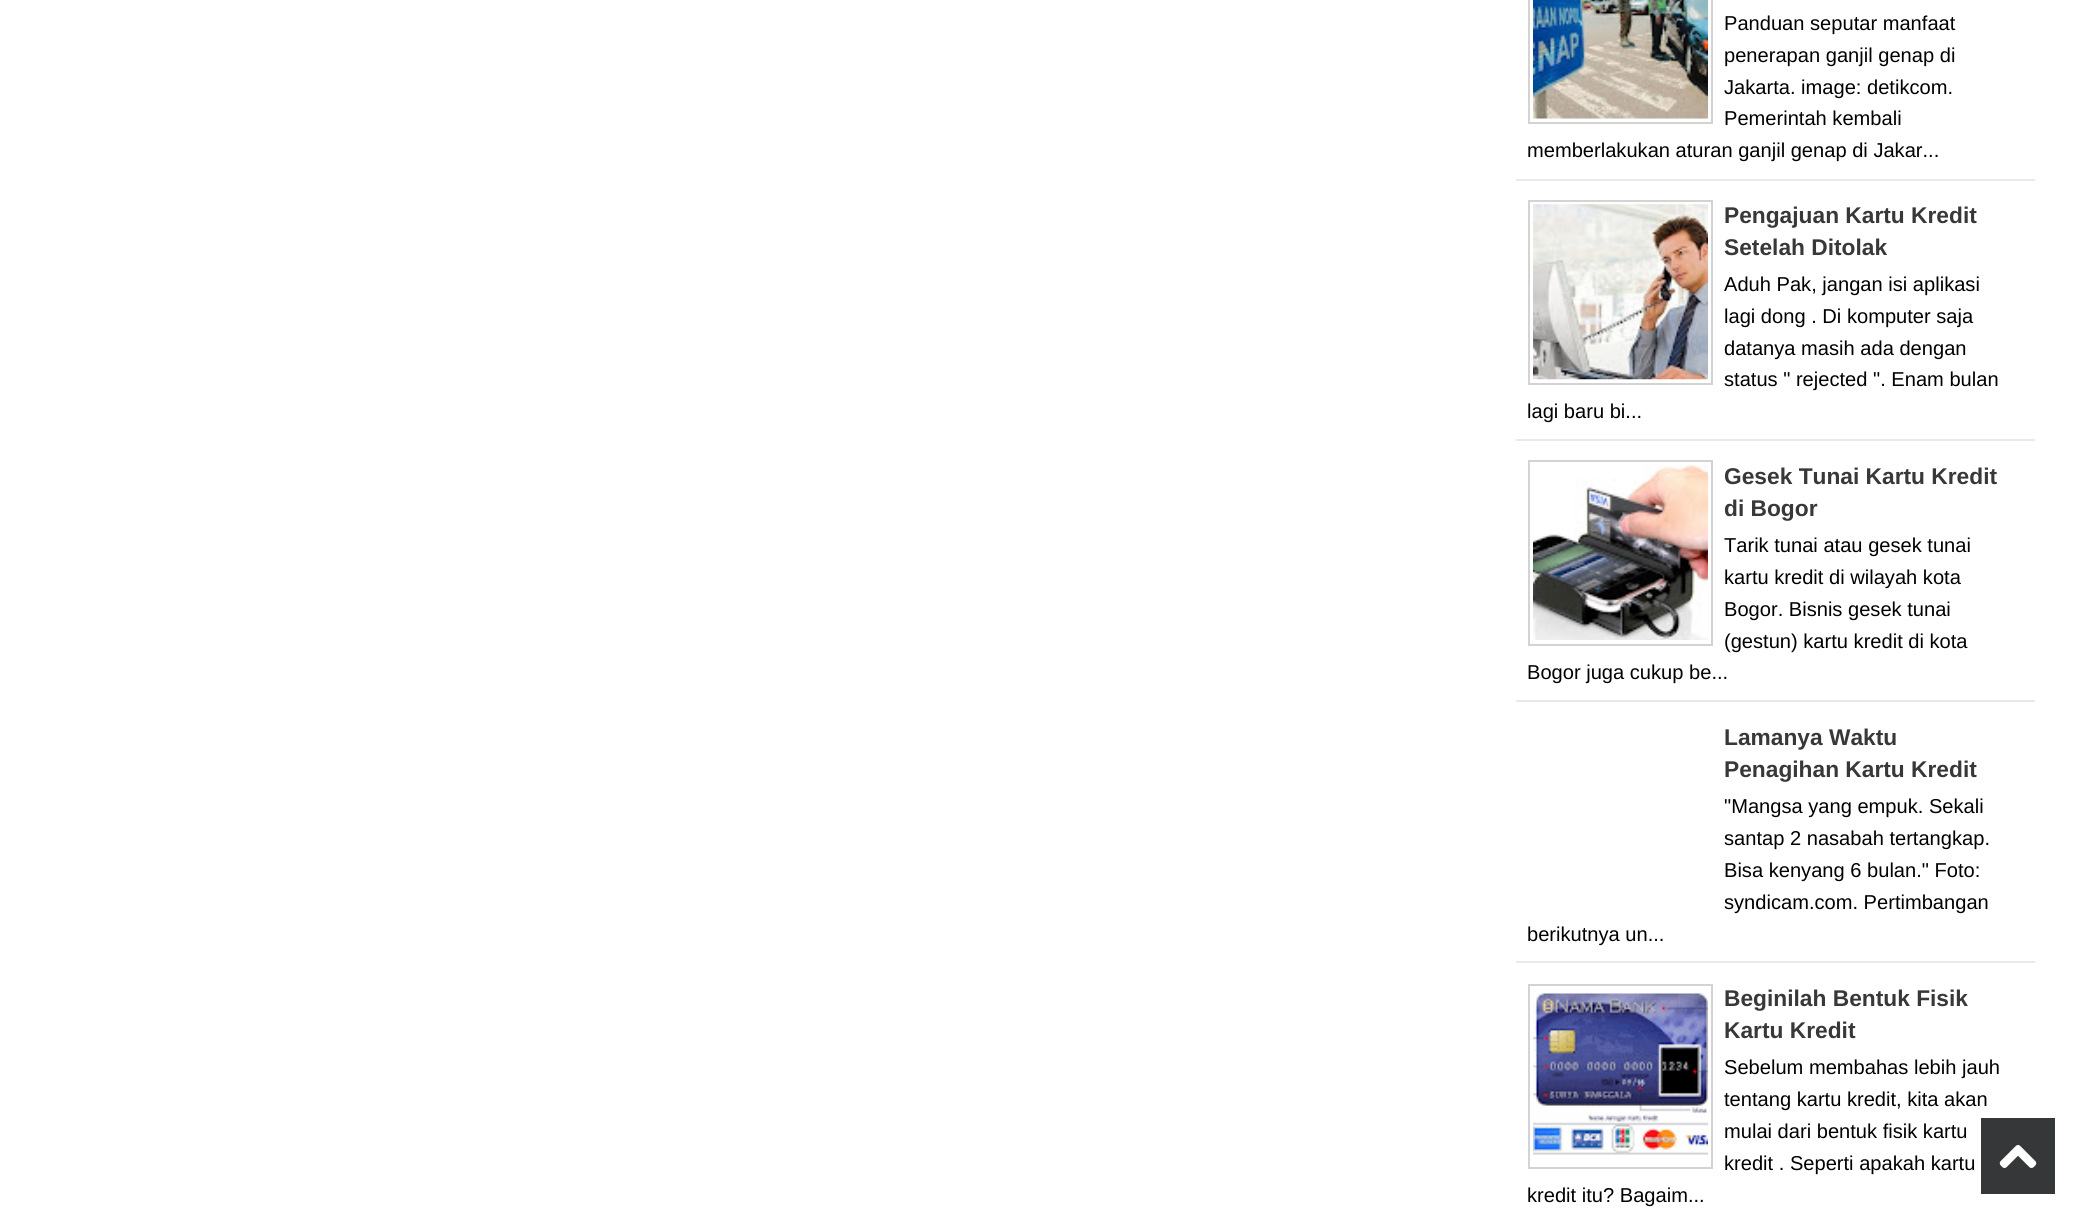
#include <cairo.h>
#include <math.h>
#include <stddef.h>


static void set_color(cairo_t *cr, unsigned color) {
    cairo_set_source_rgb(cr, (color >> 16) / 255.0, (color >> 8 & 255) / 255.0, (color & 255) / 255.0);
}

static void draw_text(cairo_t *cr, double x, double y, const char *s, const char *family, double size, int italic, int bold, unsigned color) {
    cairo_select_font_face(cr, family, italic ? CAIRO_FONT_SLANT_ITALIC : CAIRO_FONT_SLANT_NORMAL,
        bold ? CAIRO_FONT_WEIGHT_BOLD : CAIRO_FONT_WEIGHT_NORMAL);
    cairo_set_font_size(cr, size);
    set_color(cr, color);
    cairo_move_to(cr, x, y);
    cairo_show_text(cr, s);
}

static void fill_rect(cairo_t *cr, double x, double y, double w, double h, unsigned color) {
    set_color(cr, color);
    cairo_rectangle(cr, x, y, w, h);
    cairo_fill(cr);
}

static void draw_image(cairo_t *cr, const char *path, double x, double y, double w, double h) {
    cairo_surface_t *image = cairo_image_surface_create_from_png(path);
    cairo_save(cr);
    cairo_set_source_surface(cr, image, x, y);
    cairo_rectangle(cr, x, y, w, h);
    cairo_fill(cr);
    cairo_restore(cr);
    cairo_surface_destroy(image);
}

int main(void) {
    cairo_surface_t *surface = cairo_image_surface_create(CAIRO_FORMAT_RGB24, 2088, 1215);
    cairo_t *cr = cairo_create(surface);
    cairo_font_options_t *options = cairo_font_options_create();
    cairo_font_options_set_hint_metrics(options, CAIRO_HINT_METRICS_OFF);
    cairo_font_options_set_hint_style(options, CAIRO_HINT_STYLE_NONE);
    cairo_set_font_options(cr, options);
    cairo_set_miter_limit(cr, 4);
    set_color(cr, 0xFFFFFF);
    cairo_paint(cr);
    fill_rect(cr, 1516, 179, 519, 2, 0xE9E9E9);
    cairo_rectangle(cr, 1529, -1, 183, 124);
    set_color(cr, 0xD3D3D3);
    cairo_stroke(cr);
    draw_image(cr, "assets/img1.png", 1533, 0, 175, 119);
    draw_text(cr, 1724, 30, "Panduan seputar manfaat", "Liberation Sans", 20.1, 0, 0, 0x000000);
    draw_text(cr, 1724, 62, "penerapan ganjil genap di", "Liberation Sans", 20.1, 0, 0, 0x000000);
    draw_text(cr, 1724, 94, "Jakarta. image: detikcom.", "Liberation Sans", 20.1, 0, 0, 0x000000);
    draw_text(cr, 1724, 125, "Pemerintah kembali", "Liberation Sans", 20.1, 0, 0, 0x000000);
    draw_text(cr, 1527, 157, "memberlakukan aturan ganjil genap di Jakar...", "Liberation Sans", 20.1, 0, 0, 0x000000);
    fill_rect(cr, 1516, 439, 519, 2, 0xE9E9E9);
    cairo_rectangle(cr, 1529, 201, 183, 183);
    set_color(cr, 0xD3D3D3);
    cairo_stroke(cr);
    draw_image(cr, "assets/img2.png", 1533, 204, 175, 176);
    draw_text(cr, 1724, 223, "Pengajuan Kartu Kredit", "Liberation Sans", 22.75, 0, 1, 0x383838);
    draw_text(cr, 1724, 255, "Setelah Ditolak", "Liberation Sans", 22.75, 0, 1, 0x383838);
    draw_text(cr, 1724, 291, "Aduh Pak, jangan isi aplikasi", "Liberation Sans", 20.1, 0, 0, 0x000000);
    draw_text(cr, 1724, 323, "lagi dong . Di komputer saja", "Liberation Sans", 20.1, 0, 0, 0x000000);
    draw_text(cr, 1724, 355, "datanya masih ada dengan", "Liberation Sans", 20.1, 0, 0, 0x000000);
    draw_text(cr, 1724, 386, "status \" rejected \". Enam bulan", "Liberation Sans", 20.1, 0, 0, 0x000000);
    draw_text(cr, 1527, 418, "lagi baru bi...", "Liberation Sans", 20.1, 0, 0, 0x000000);
    fill_rect(cr, 1516, 700, 519, 2, 0xE9E9E9);
    cairo_rectangle(cr, 1529, 461, 183, 184);
    set_color(cr, 0xD3D3D3);
    cairo_stroke(cr);
    draw_image(cr, "assets/img3.png", 1533, 465, 175, 175);
    draw_text(cr, 1724, 484, "Gesek Tunai Kartu Kredit", "Liberation Sans", 22.75, 0, 1, 0x383838);
    draw_text(cr, 1724, 516, "di Bogor", "Liberation Sans", 22.75, 0, 1, 0x383838);
    draw_text(cr, 1724, 552, "Tarik tunai atau gesek tunai", "Liberation Sans", 20.1, 0, 0, 0x000000);
    draw_text(cr, 1724, 584, "kartu kredit di wilayah kota", "Liberation Sans", 20.1, 0, 0, 0x000000);
    draw_text(cr, 1724, 616, "Bogor. Bisnis gesek tunai", "Liberation Sans", 20.1, 0, 0, 0x000000);
    draw_text(cr, 1724, 648, "(gestun) kartu kredit di kota", "Liberation Sans", 20.1, 0, 0, 0x000000);
    draw_text(cr, 1527, 679, "Bogor juga cukup be...", "Liberation Sans", 20.1, 0, 0, 0x000000);
    fill_rect(cr, 1516, 961, 519, 2, 0xE9E9E9);
    draw_text(cr, 1724, 745, "Lamanya Waktu", "Liberation Sans", 22.75, 0, 1, 0x383838);
    draw_text(cr, 1724, 777, "Penagihan Kartu Kredit", "Liberation Sans", 22.75, 0, 1, 0x383838);
    draw_text(cr, 1724, 813, "\"Mangsa yang empuk. Sekali", "Liberation Sans", 20.1, 0, 0, 0x000000);
    draw_text(cr, 1724, 845, "santap 2 nasabah tertangkap.", "Liberation Sans", 20.1, 0, 0, 0x000000);
    draw_text(cr, 1724, 877, "Bisa kenyang 6 bulan.\" Foto:", "Liberation Sans", 20.1, 0, 0, 0x000000);
    draw_text(cr, 1724, 909, "syndicam.com. Pertimbangan", "Liberation Sans", 20.1, 0, 0, 0x000000);
    draw_text(cr, 1527, 941, "berikutnya un...", "Liberation Sans", 20.1, 0, 0, 0x000000);
    cairo_rectangle(cr, 1529, 985, 183, 183);
    set_color(cr, 0xD3D3D3);
    cairo_stroke(cr);
    draw_image(cr, "assets/img4.png", 1533, 993, 175, 162);
    draw_text(cr, 1724, 1006, "Beginilah Bentuk Fisik", "Liberation Sans", 22.75, 0, 1, 0x383838);
    draw_text(cr, 1724, 1038, "Kartu Kredit", "Liberation Sans", 22.75, 0, 1, 0x383838);
    draw_text(cr, 1724, 1074, "Sebelum membahas lebih jauh", "Liberation Sans", 20.1, 0, 0, 0x000000);
    draw_text(cr, 1724, 1106, "tentang kartu kredit, kita akan", "Liberation Sans", 20.1, 0, 0, 0x000000);
    draw_text(cr, 1724, 1138, "mulai dari bentuk fisik kartu", "Liberation Sans", 20.1, 0, 0, 0x000000);
    draw_text(cr, 1724, 1170, "kredit . Seperti apakah kartu", "Liberation Sans", 20.1, 0, 0, 0x000000);
    draw_text(cr, 1527, 1202, "kredit itu? Bagaim...", "Liberation Sans", 20.1, 0, 0, 0x000000);
    fill_rect(cr, 1981, 1118, 74, 76, 0x353738);
    draw_image(cr, "assets/img5.png", 1999, 1145, 38, 23);
    cairo_surface_write_to_png(surface, "output.png");
    cairo_font_options_destroy(options);
    cairo_destroy(cr);
    cairo_surface_destroy(surface);
    return 0;
}
